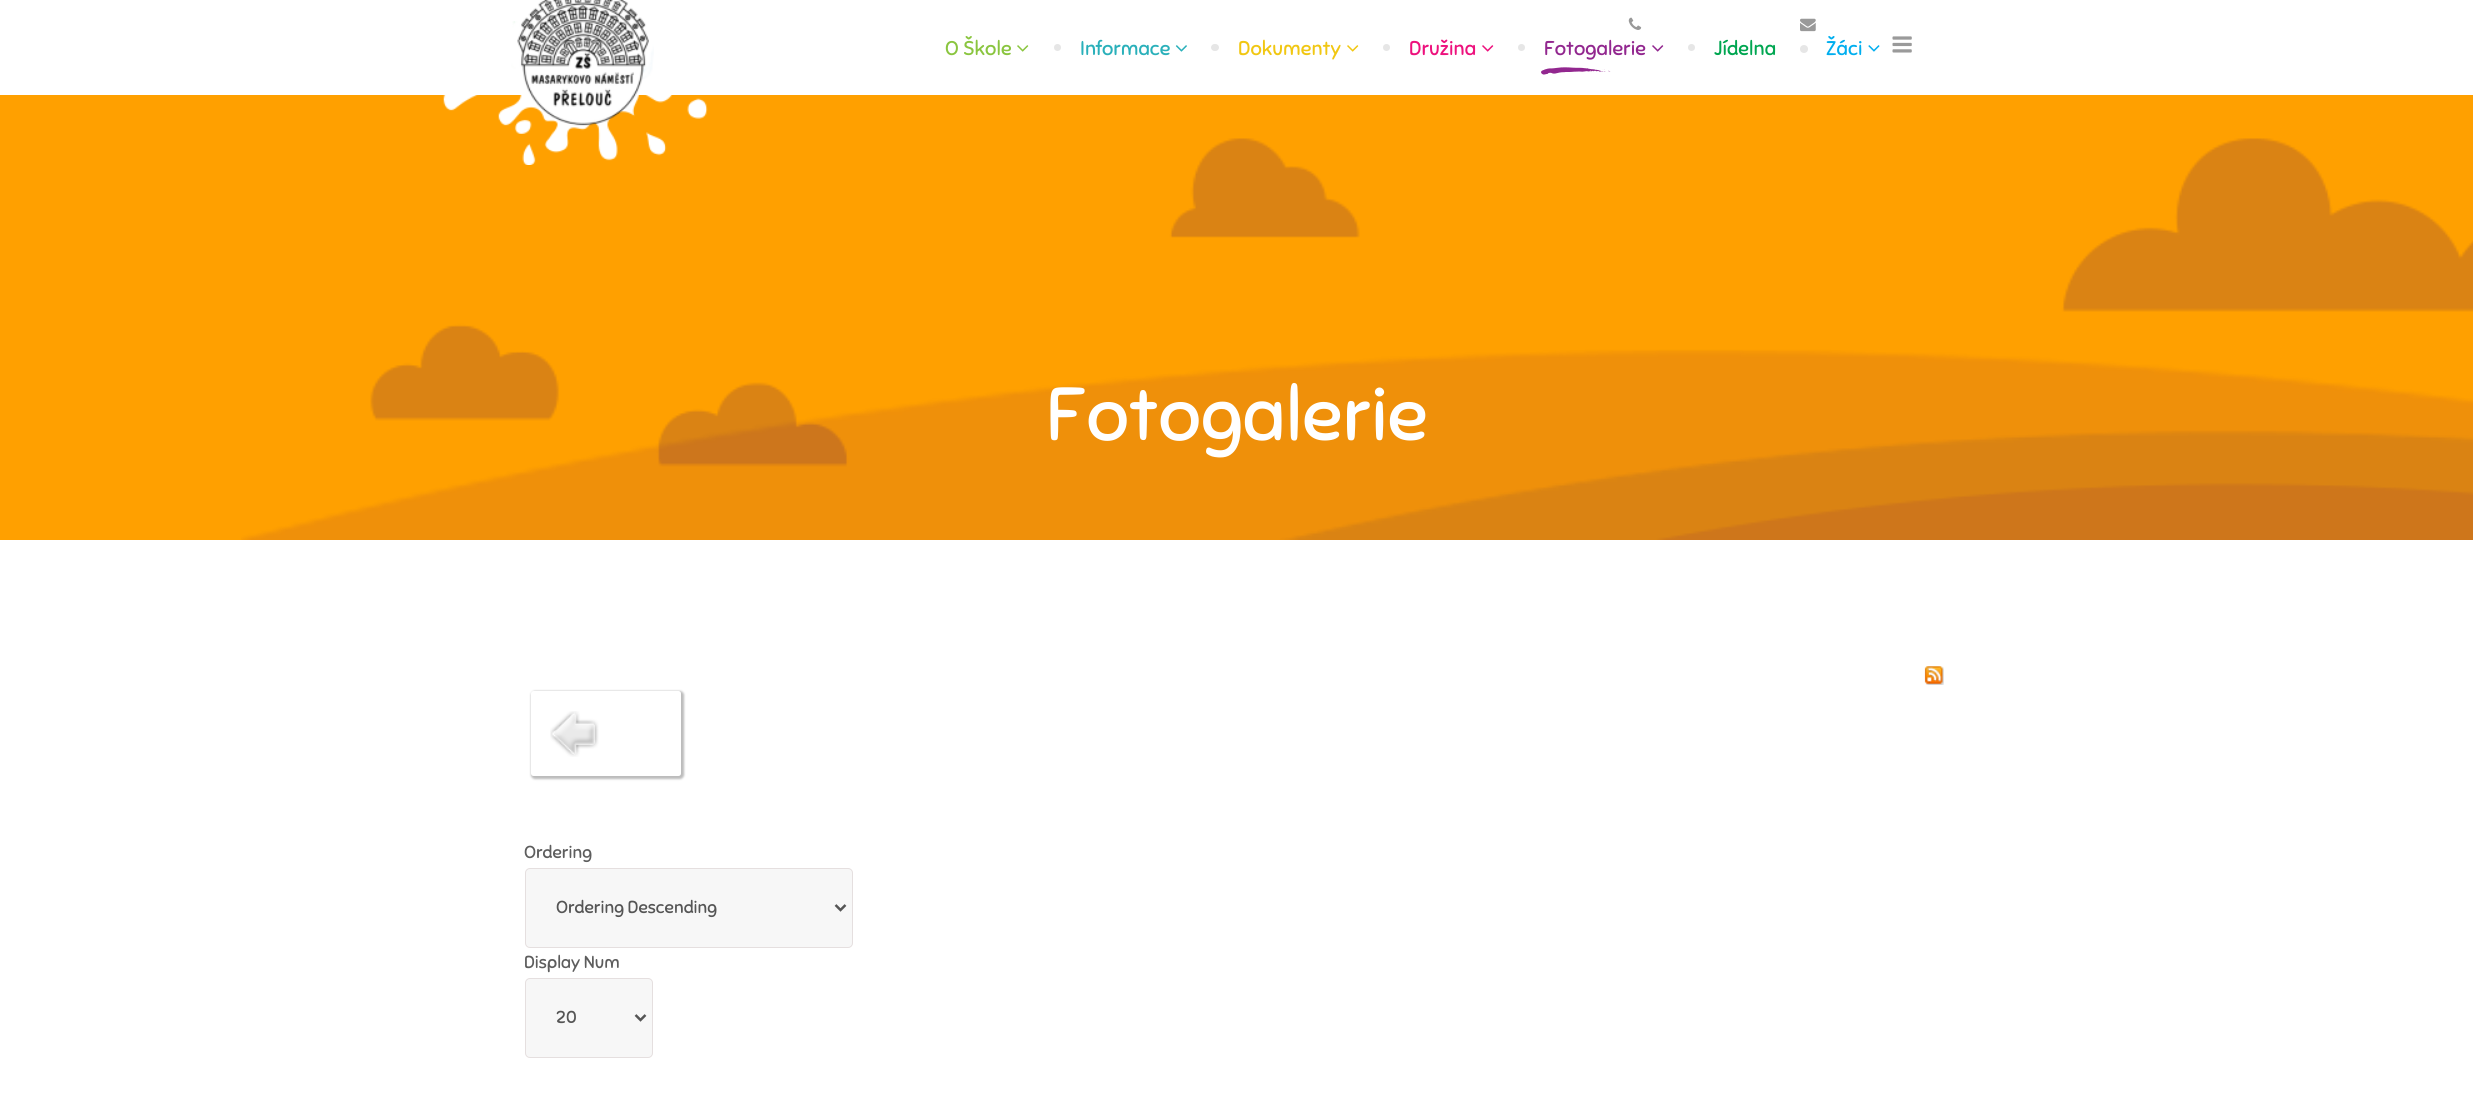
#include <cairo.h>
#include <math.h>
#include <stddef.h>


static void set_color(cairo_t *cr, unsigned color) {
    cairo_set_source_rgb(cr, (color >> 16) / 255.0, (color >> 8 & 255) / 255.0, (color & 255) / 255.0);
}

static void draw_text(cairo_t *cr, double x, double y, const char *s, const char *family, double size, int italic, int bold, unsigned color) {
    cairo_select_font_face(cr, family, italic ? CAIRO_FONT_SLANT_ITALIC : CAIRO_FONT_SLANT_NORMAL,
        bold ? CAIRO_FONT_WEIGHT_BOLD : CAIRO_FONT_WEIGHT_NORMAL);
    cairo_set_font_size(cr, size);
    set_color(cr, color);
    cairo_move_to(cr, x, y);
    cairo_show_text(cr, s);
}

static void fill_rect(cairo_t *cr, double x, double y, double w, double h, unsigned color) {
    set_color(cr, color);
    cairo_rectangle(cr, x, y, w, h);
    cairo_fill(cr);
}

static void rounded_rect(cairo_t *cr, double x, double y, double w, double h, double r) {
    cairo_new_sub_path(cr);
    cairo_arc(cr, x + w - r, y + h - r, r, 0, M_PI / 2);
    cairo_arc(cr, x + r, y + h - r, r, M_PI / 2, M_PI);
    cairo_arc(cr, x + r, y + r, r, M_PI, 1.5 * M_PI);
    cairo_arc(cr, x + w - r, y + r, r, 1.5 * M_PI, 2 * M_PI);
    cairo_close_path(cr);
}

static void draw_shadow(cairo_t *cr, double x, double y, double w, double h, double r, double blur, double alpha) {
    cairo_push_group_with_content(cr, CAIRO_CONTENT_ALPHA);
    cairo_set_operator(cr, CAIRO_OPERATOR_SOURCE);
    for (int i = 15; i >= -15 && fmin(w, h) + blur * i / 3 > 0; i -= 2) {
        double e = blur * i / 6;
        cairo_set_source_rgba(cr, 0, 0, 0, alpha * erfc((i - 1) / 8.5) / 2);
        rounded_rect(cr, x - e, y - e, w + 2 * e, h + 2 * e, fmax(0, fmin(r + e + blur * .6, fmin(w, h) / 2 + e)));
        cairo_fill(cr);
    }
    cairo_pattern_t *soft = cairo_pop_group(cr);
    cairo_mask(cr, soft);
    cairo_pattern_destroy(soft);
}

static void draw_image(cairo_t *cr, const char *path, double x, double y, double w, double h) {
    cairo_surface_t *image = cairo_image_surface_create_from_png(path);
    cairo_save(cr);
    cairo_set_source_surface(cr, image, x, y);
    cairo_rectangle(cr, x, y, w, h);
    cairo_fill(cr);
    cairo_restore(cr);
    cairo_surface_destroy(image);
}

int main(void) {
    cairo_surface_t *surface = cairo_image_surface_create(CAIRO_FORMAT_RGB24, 2473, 1110);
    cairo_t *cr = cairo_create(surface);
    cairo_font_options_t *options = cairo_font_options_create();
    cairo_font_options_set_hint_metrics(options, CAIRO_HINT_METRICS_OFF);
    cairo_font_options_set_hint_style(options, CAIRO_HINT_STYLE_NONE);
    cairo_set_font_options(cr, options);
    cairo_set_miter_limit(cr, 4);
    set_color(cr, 0xFFFFFF);
    cairo_paint(cr);
    draw_image(cr, "assets/img1.png", 1628, 17, 14, 13);
    draw_image(cr, "assets/img2.png", 1800, 18, 16, 14);
    fill_rect(cr, 0, 95, 2473, 445, 0xFFA000);
    draw_image(cr, "assets/img12.png", 241, 138, 2232, 402);
    draw_image(cr, "assets/img3.png", 443, 0, 265, 165);
    draw_text(cr, 945, 55, "O Škole", "Sniglet", 20, 0, 0, 0x8AC53F);
    draw_image(cr, "assets/img4.png", 1017, 45, 12, 7);
    set_color(cr, 0xE6E6E6);
    cairo_arc(cr, 1057.5, 47.5, 3.5, 0, 2 * M_PI);
    cairo_fill(cr);
    draw_text(cr, 1080, 55, "Informace", "Sniglet", 20, 0, 0, 0x2AB0BA);
    draw_image(cr, "assets/img5.png", 1175, 45, 12, 7);
    set_color(cr, 0xE6E6E6);
    rounded_rect(cr, 1211, 44, 8, 7, 3.5);
    cairo_fill(cr);
    draw_text(cr, 1238, 55, "Dokumenty", "Sniglet", 20, 0, 0, 0xF1C712);
    draw_image(cr, "assets/img6.png", 1347, 45, 12, 7);
    set_color(cr, 0xE6E6E6);
    cairo_arc(cr, 1386.5, 47.5, 3.5, 0, 2 * M_PI);
    cairo_fill(cr);
    draw_text(cr, 1409, 55, "Družina", "Sniglet", 20, 0, 0, 0xED117D);
    draw_image(cr, "assets/img7.png", 1482, 45, 12, 7);
    set_color(cr, 0xE6E6E6);
    cairo_arc(cr, 1521.5, 47.5, 3.5, 0, 2 * M_PI);
    cairo_fill(cr);
    draw_text(cr, 1544, 55, "Fotogalerie", "Sniglet", 20, 0, 0, 0x92278F);
    draw_image(cr, "assets/img8.png", 1652, 45, 12, 7);
    draw_image(cr, "assets/img9.png", 1541, 67, 70, 8);
    set_color(cr, 0xE6E6E6);
    cairo_arc(cr, 1691.5, 47.5, 3.5, 0, 2 * M_PI);
    cairo_fill(cr);
    draw_text(cr, 1714, 55, "Jídelna", "Sniglet", 20, 0, 0, 0x00A651);
    set_color(cr, 0xE6E6E6);
    cairo_new_path(cr);
    cairo_arc(cr, 1804, 49, 4, 0, 2 * M_PI);
    cairo_fill(cr);
    draw_text(cr, 1826, 55, "Žáci", "Sniglet", 20, 0, 0, 0x00AEEF);
    draw_image(cr, "assets/img10.png", 1868, 45, 12, 7);
    draw_image(cr, "assets/img11.png", 1892, 36, 20, 17);
    draw_text(cr, 1046, 440, "Fotogalerie", "Sniglet", 75, 0, 0, 0xFFFFFF);
    draw_image(cr, "assets/img13.png", 1924, 666, 20, 19);
    set_color(cr, 0x787878);
    draw_shadow(cr, 531, 691, 153, 88, 4, 1, 0.5);
    set_color(cr, 0xFFFFFF);
    rounded_rect(cr, 531, 691, 150, 85, 2.5);
    cairo_fill(cr);
    draw_image(cr, "assets/img14.png", 550, 711, 49, 46);
    draw_text(cr, 524, 858, "Ordering", "Sniglet", 17.5, 0, 0, 0x5D5D5D);
    set_color(cr, 0xF7F7F7);
    rounded_rect(cr, 525.5, 868.5, 327, 79, 4.5);
    cairo_fill_preserve(cr);
    set_color(cr, 0xE5DFDF);
    cairo_set_line_width(cr, 1);
    cairo_stroke(cr);
    cairo_new_path(cr);
    cairo_move_to(cr, 835.5, 905);
    cairo_line_to(cr, 840.5, 910);
    cairo_line_to(cr, 845.5, 905);
    set_color(cr, 0x555555);
    cairo_set_line_width(cr, 2.5);
    cairo_stroke(cr);
    draw_text(cr, 556, 913, "Ordering Descending", "Sniglet", 17.5, 0, 0, 0x555555);
    draw_text(cr, 524, 968, "Display Num", "Sniglet", 17.5, 0, 0, 0x5D5D5D);
    set_color(cr, 0xF7F7F7);
    rounded_rect(cr, 525.5, 978.5, 127, 79, 4.5);
    cairo_fill_preserve(cr);
    set_color(cr, 0xE5DFDF);
    cairo_set_line_width(cr, 1);
    cairo_stroke(cr);
    cairo_new_path(cr);
    cairo_move_to(cr, 635.5, 1015);
    cairo_line_to(cr, 640.5, 1020);
    cairo_line_to(cr, 645.5, 1015);
    set_color(cr, 0x555555);
    cairo_set_line_width(cr, 2.5);
    cairo_stroke(cr);
    draw_text(cr, 556, 1023, "20", "Sniglet", 17.5, 0, 0, 0x555555);
    cairo_surface_write_to_png(surface, "output.png");
    cairo_font_options_destroy(options);
    cairo_destroy(cr);
    cairo_surface_destroy(surface);
    return 0;
}
